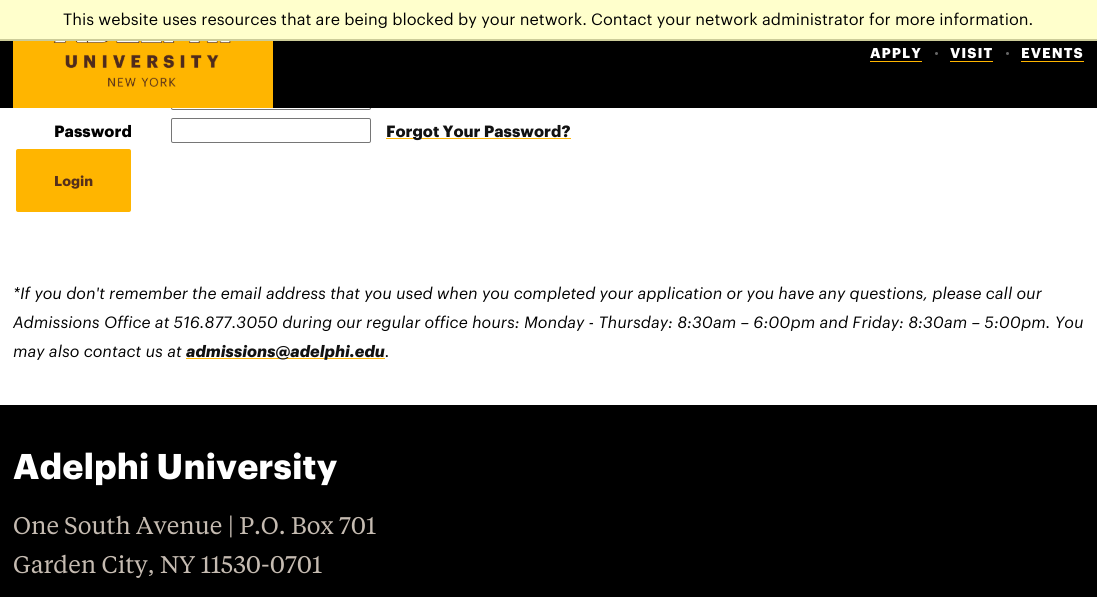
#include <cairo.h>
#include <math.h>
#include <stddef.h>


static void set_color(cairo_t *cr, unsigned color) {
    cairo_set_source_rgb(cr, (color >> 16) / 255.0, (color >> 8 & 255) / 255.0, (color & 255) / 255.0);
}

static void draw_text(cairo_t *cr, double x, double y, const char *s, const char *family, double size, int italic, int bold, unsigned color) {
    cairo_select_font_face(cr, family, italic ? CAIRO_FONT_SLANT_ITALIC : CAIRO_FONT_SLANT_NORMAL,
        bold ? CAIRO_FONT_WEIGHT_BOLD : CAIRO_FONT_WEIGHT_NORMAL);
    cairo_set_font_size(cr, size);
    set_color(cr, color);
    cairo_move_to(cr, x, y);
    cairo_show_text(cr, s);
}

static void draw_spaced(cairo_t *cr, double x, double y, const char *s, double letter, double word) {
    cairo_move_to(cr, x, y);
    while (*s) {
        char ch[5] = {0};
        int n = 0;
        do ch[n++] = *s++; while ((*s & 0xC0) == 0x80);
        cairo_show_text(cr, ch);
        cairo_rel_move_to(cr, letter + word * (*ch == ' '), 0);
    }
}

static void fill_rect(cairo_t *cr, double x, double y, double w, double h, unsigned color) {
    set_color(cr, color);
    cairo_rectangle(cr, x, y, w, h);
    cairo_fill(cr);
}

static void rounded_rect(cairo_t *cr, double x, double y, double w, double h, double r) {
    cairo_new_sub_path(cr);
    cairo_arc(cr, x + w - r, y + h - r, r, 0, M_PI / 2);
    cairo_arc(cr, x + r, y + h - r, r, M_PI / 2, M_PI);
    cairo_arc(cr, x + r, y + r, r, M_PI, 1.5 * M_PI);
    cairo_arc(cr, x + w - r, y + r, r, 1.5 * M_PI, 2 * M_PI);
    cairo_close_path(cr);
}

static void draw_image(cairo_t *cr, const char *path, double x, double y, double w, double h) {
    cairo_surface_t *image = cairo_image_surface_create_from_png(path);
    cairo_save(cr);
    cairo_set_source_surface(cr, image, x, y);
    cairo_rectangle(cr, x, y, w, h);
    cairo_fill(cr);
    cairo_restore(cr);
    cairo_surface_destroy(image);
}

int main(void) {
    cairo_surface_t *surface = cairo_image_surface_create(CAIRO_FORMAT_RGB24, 1097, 597);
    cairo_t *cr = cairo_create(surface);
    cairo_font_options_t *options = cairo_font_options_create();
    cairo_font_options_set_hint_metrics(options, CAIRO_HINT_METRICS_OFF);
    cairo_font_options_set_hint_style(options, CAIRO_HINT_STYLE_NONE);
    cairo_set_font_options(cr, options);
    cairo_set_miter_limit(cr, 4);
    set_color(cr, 0xFFFFFF);
    cairo_paint(cr);
    fill_rect(cr, 0, 0, 1097, 39, 0xFFFFCC);
    fill_rect(cr, 0, 39, 1097, 2, 0xCCCC99);
    draw_text(cr, 63, 25, "This website uses resources that are being blocked by your network. Contact your network administrator for more information.", "Graphik", 16, 0, 0, 0x000000);
    rounded_rect(cr, 171.5, 85.5, 199, 24, 1.5);
    set_color(cr, 0x767676);
    cairo_set_line_width(cr, 1);
    cairo_stroke(cr);
    fill_rect(cr, 0, 41, 1097, 67, 0x000000);
    fill_rect(cr, 13, 41, 260, 67, 0xFFB500);
    draw_image(cr, "assets/img1.png", 53, 41, 178, 46);
    cairo_select_font_face(cr, "Graphik", CAIRO_FONT_SLANT_NORMAL, CAIRO_FONT_WEIGHT_BOLD);
    cairo_set_font_size(cr, 14);
    set_color(cr, 0xFFFFFF);
    draw_spaced(cr, 870, 58, "APPLY", 1, 0);
    fill_rect(cr, 870, 61, 52, 1, 0xFFB500);
    set_color(cr, 0x666666);
    cairo_new_path(cr);
    cairo_arc(cr, 936.5, 53.5, 1.5, 0, 2 * M_PI);
    cairo_fill(cr);
    set_color(cr, 0xFFFFFF);
    draw_spaced(cr, 950, 58, "VISIT", 1, 0);
    fill_rect(cr, 950, 61, 43, 1, 0xFFB500);
    set_color(cr, 0x666666);
    cairo_new_path(cr);
    cairo_arc(cr, 1007.5, 53.5, 1.5, 0, 2 * M_PI);
    cairo_fill(cr);
    set_color(cr, 0xFFFFFF);
    draw_spaced(cr, 1021, 58, "EVENTS", 1, 0);
    fill_rect(cr, 1021, 61, 63, 1, 0xFFB500);
    draw_text(cr, 54, 137, "Password", "Graphik", 16, 0, 1, 0x000000);
    rounded_rect(cr, 171.5, 118.5, 199, 24, 1.5);
    set_color(cr, 0x767676);
    cairo_stroke(cr);
    fill_rect(cr, 386, 138, 185, 1, 0xFFB500);
    draw_text(cr, 386, 137, "Forgot Your Password?", "Graphik", 16, 0, 1, 0x121212);
    set_color(cr, 0xFFB500);
    rounded_rect(cr, 16, 149, 115, 63, 2);
    cairo_fill(cr);
    draw_text(cr, 54, 186, "Login", "Graphik", 14, 0, 1, 0x552F1B);
    draw_text(cr, 13, 299, "*If you don't remember the email address that you used when you completed your application or you have any questions, please call our", "Graphik", 16, 1, 0, 0x000000);
    draw_text(cr, 13, 328, "Admissions Office at 516.877.3050 during our regular office hours: Monday - Thursday: 8:30am – 6:00pm and Friday: 8:30am – 5:00pm. You", "Graphik", 16, 1, 0, 0x000000);
    draw_text(cr, 13, 357, "may also contact us at", "Graphik", 16, 1, 0, 0x000000);
    fill_rect(cr, 186, 358, 199, 1, 0xFFB500);
    draw_text(cr, 186, 357, "admissions@adelphi.edu", "Graphik", 16, 1, 1, 0x121212);
    draw_text(cr, 385, 357, ".", "Graphik", 16, 1, 0, 0x000000);
    fill_rect(cr, 0, 405, 1097, 192, 0x000000);
    draw_text(cr, 13, 479, "Adelphi University", "Graphik", 35, 0, 1, 0xFFFFFF);
    draw_text(cr, 13, 534, "One South Avenue | P.O. Box 701", "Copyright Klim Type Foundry", 24, 0, 0, 0xC5BBB1);
    draw_text(cr, 13, 573, "Garden City, NY 11530-0701", "Copyright Klim Type Foundry", 24, 0, 0, 0xC5BBB1);
    cairo_surface_write_to_png(surface, "output.png");
    cairo_font_options_destroy(options);
    cairo_destroy(cr);
    cairo_surface_destroy(surface);
    return 0;
}
